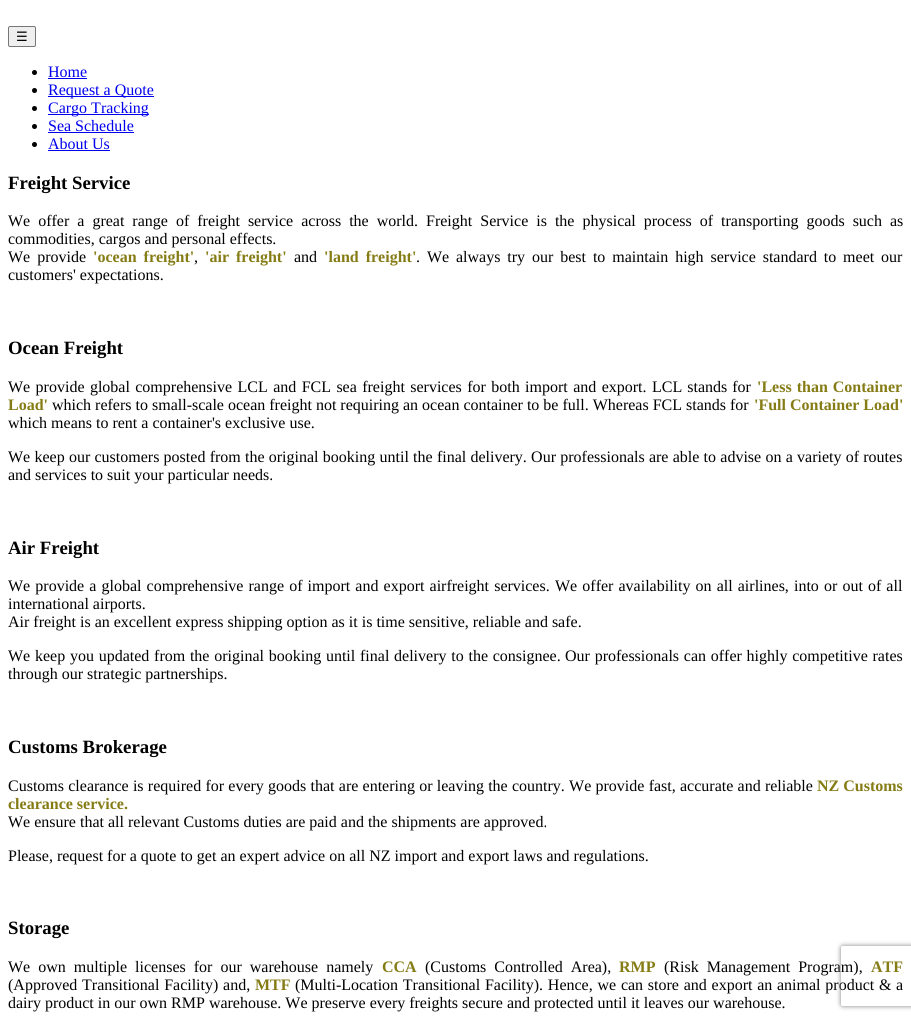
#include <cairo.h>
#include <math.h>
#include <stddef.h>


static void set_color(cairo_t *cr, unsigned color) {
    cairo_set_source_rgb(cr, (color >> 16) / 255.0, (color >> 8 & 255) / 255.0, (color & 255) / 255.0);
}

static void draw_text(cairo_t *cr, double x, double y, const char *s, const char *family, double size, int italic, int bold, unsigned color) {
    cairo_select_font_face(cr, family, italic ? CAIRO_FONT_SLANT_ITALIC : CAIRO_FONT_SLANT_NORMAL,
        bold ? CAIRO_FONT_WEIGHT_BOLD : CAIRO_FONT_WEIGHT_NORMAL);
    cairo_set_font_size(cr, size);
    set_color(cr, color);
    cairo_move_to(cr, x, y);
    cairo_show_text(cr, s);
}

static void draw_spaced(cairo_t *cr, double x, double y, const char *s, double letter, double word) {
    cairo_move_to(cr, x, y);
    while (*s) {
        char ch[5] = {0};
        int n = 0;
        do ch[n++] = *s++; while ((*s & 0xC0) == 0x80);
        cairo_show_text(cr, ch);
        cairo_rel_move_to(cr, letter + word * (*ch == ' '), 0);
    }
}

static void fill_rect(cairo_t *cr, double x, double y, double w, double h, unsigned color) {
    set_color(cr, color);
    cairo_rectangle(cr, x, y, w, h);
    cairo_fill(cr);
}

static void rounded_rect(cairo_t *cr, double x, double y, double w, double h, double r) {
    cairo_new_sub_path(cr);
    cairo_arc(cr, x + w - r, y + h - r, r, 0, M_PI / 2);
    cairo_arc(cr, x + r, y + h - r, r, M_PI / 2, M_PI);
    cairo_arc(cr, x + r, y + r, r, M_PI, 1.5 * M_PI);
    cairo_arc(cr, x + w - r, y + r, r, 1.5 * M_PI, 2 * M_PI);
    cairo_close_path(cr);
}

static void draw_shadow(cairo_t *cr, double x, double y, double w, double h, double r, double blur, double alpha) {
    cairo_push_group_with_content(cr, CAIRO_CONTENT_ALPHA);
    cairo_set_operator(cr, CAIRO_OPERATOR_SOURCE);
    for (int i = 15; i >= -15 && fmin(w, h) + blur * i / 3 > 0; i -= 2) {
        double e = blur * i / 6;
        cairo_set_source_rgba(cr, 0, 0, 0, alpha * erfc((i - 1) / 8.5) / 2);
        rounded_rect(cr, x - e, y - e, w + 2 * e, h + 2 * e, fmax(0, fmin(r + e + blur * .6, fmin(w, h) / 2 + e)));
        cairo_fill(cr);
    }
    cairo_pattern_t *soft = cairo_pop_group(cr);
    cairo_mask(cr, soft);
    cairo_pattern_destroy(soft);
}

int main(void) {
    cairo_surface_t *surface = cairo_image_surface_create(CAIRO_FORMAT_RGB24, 911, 1020);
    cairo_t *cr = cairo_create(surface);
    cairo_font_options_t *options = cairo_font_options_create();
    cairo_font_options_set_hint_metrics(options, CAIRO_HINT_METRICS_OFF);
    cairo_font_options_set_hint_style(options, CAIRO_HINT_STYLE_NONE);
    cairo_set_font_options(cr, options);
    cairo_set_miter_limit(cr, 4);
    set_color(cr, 0xFFFFFF);
    cairo_paint(cr);
    set_color(cr, 0xEFEFEF);
    rounded_rect(cr, 8.5, 26.5, 27, 20, 1.5);
    cairo_fill_preserve(cr);
    set_color(cr, 0x767676);
    cairo_set_line_width(cr, 1);
    cairo_stroke(cr);
    draw_text(cr, 16, 41, "☰", "DejaVu Sans", 13, 0, 0, 0x000000);
    cairo_new_path(cr);
    cairo_arc(cr, 34.5, 72.5, 2.5, 0, 2 * M_PI);
    cairo_fill(cr);
    draw_text(cr, 48, 77, "Home", "Liberation Serif", 16, 0, 0, 0x0000EE);
    fill_rect(cr, 48, 78, 39, 1, 0x0000EE);
    set_color(cr, 0x000000);
    cairo_new_path(cr);
    cairo_arc(cr, 34.5, 90.5, 2.5, 0, 2 * M_PI);
    cairo_fill(cr);
    fill_rect(cr, 48, 96, 106, 1, 0x0000EE);
    draw_text(cr, 48, 95, "Request a Quote", "Liberation Serif", 16, 0, 0, 0x0000EE);
    set_color(cr, 0x000000);
    cairo_new_path(cr);
    cairo_arc(cr, 34.5, 108.5, 2.5, 0, 2 * M_PI);
    cairo_fill(cr);
    fill_rect(cr, 48, 114, 101, 1, 0x0000EE);
    draw_text(cr, 48, 113, "Cargo Tracking", "Liberation Serif", 16, 0, 0, 0x0000EE);
    set_color(cr, 0x000000);
    cairo_new_path(cr);
    cairo_arc(cr, 34.5, 126.5, 2.5, 0, 2 * M_PI);
    cairo_fill(cr);
    draw_text(cr, 48, 131, "Sea Schedule", "Liberation Serif", 16, 0, 0, 0x0000EE);
    fill_rect(cr, 48, 132, 86, 1, 0x0000EE);
    set_color(cr, 0x000000);
    cairo_new_path(cr);
    cairo_arc(cr, 34.5, 144.5, 2.5, 0, 2 * M_PI);
    cairo_fill(cr);
    draw_text(cr, 48, 149, "About Us", "Liberation Serif", 16, 0, 0, 0x0000EE);
    fill_rect(cr, 48, 150, 62, 1, 0x0000EE);
    draw_text(cr, 8, 189, "Freight Service", "Liberation Serif", 18.75, 0, 1, 0x000000);
    cairo_select_font_face(cr, "Liberation Serif", CAIRO_FONT_SLANT_NORMAL, CAIRO_FONT_WEIGHT_NORMAL);
    cairo_set_font_size(cr, 16);
    draw_spaced(cr, 8, 226, "We offer a great range of freight service across the world. Freight Service is the physical process of transporting goods such as", 0, 4);
    draw_text(cr, 8, 244, "commodities, cargos and personal effects.", "Liberation Serif", 16, 0, 0, 0x000000);
    draw_spaced(cr, 8, 262, "We provide", 0, 3);
    cairo_select_font_face(cr, "Liberation Serif", CAIRO_FONT_SLANT_NORMAL, CAIRO_FONT_WEIGHT_BOLD);
    set_color(cr, 0x857C15);
    draw_spaced(cr, 93, 262, "'ocean freight'", 0, 3);
    draw_text(cr, 194, 262, ",", "Liberation Serif", 16, 0, 0, 0x000000);
    cairo_select_font_face(cr, "Liberation Serif", CAIRO_FONT_SLANT_NORMAL, CAIRO_FONT_WEIGHT_BOLD);
    set_color(cr, 0x857C15);
    draw_spaced(cr, 205, 262, "'air freight'", 0, 3);
    draw_text(cr, 294, 262, "and", "Liberation Serif", 16, 0, 0, 0x000000);
    cairo_select_font_face(cr, "Liberation Serif", CAIRO_FONT_SLANT_NORMAL, CAIRO_FONT_WEIGHT_BOLD);
    set_color(cr, 0x857C15);
    draw_spaced(cr, 324, 262, "'land freight'", 0, 3);
    cairo_select_font_face(cr, "Liberation Serif", CAIRO_FONT_SLANT_NORMAL, CAIRO_FONT_WEIGHT_NORMAL);
    set_color(cr, 0x000000);
    draw_spaced(cr, 416, 262, ". We always try our best to maintain high service standard to meet our", 0, 2.9);
    draw_text(cr, 8, 280, "customers' expectations.", "Liberation Serif", 16, 0, 0, 0x000000);
    draw_text(cr, 8, 354, "Ocean Freight", "Liberation Serif", 18.75, 0, 1, 0x000000);
    cairo_select_font_face(cr, "Liberation Serif", CAIRO_FONT_SLANT_NORMAL, CAIRO_FONT_WEIGHT_NORMAL);
    cairo_set_font_size(cr, 16);
    draw_spaced(cr, 8, 392, "We provide global comprehensive LCL and FCL sea freight services for both import and export.", 0, 1.4);
    draw_spaced(cr, 652, 392, "LCL stands for", 0, 1);
    cairo_select_font_face(cr, "Liberation Serif", CAIRO_FONT_SLANT_NORMAL, CAIRO_FONT_WEIGHT_BOLD);
    set_color(cr, 0x857C15);
    draw_spaced(cr, 757, 392, "'Less than Container", 0, 1);
    draw_text(cr, 8, 410, "Load'", "Liberation Serif", 16, 0, 1, 0x857C15);
    draw_text(cr, 52, 410, "which refers to small-scale ocean freight not requiring an ocean container to be full. Whereas FCL stands for", "Liberation Serif", 16, 0, 0, 0x000000);
    draw_text(cr, 754, 410, "'Full Container Load'", "Liberation Serif", 16, 0, 1, 0x857C15);
    draw_text(cr, 8, 428, "which means to rent a container's exclusive use.", "Liberation Serif", 16, 0, 0, 0x000000);
    draw_spaced(cr, 8, 462, "We keep our customers posted from the original booking until the final delivery. Our professionals are able to advise on a variety of routes", 0, 0.25);
    draw_text(cr, 8, 480, "and services to suit your particular needs.", "Liberation Serif", 16, 0, 0, 0x000000);
    draw_text(cr, 8, 554, "Air Freight", "Liberation Serif", 18.75, 0, 1, 0x000000);
    cairo_select_font_face(cr, "Liberation Serif", CAIRO_FONT_SLANT_NORMAL, CAIRO_FONT_WEIGHT_NORMAL);
    cairo_set_font_size(cr, 16);
    draw_spaced(cr, 8, 591, "We provide a global comprehensive range of import and export airfreight services.", 0, 1.1);
    draw_spaced(cr, 555, 591, "We offer availability on all airlines, into or out of all", 0, 1.1);
    draw_text(cr, 8, 609, "international airports.", "Liberation Serif", 16, 0, 0, 0x000000);
    draw_text(cr, 8, 627, "Air freight is an excellent express shipping option as it is time sensitive, reliable and safe.", "Liberation Serif", 16, 0, 0, 0x000000);
    draw_spaced(cr, 8, 661, "We keep you updated from the original booking until final delivery to the consignee.", 0, 0.75);
    draw_spaced(cr, 565, 661, "Our professionals can offer highly competitive rates", 0, 0.75);
    draw_text(cr, 8, 679, "through our strategic partnerships.", "Liberation Serif", 16, 0, 0, 0x000000);
    draw_text(cr, 8, 753, "Customs Brokerage", "Liberation Serif", 18.75, 0, 1, 0x000000);
    cairo_select_font_face(cr, "Liberation Serif", CAIRO_FONT_SLANT_NORMAL, CAIRO_FONT_WEIGHT_NORMAL);
    cairo_set_font_size(cr, 16);
    draw_spaced(cr, 8, 791, "Customs clearance is required for every goods that are entering or leaving the country. We provide fast, accurate and reliable", 0, 0.25);
    draw_text(cr, 817, 791, "NZ Customs", "Liberation Serif", 16, 0, 1, 0x857C15);
    draw_text(cr, 8, 809, "clearance service.", "Liberation Serif", 16, 0, 1, 0x857C15);
    draw_text(cr, 8, 827, "We ensure that all relevant Customs duties are paid and the shipments are approved.", "Liberation Serif", 16, 0, 0, 0x000000);
    draw_text(cr, 8, 861, "Please, request for a quote to get an expert advice on all NZ import and export laws and regulations.", "Liberation Serif", 16, 0, 0, 0x000000);
    draw_text(cr, 8, 934, "Storage", "Liberation Serif", 18.75, 0, 1, 0x000000);
    cairo_select_font_face(cr, "Liberation Serif", CAIRO_FONT_SLANT_NORMAL, CAIRO_FONT_WEIGHT_NORMAL);
    cairo_set_font_size(cr, 16);
    draw_spaced(cr, 8, 972, "We own multiple licenses for our warehouse namely", 0, 4);
    draw_text(cr, 382, 972, "CCA", "Liberation Serif", 16, 0, 1, 0x857C15);
    cairo_select_font_face(cr, "Liberation Serif", CAIRO_FONT_SLANT_NORMAL, CAIRO_FONT_WEIGHT_NORMAL);
    set_color(cr, 0x000000);
    draw_spaced(cr, 425, 972, "(Customs Controlled Area),", 0, 4);
    draw_text(cr, 619, 972, "RMP", "Liberation Serif", 16, 0, 1, 0x857C15);
    cairo_select_font_face(cr, "Liberation Serif", CAIRO_FONT_SLANT_NORMAL, CAIRO_FONT_WEIGHT_NORMAL);
    set_color(cr, 0x000000);
    draw_spaced(cr, 664, 972, "(Risk Management Program),", 0, 4);
    draw_text(cr, 871, 972, "ATF", "Liberation Serif", 16, 0, 1, 0x857C15);
    cairo_select_font_face(cr, "Liberation Serif", CAIRO_FONT_SLANT_NORMAL, CAIRO_FONT_WEIGHT_NORMAL);
    set_color(cr, 0x000000);
    draw_spaced(cr, 8, 990, "(Approved Transitional Facility) and,", 0, 0.75);
    draw_text(cr, 255, 990, "MTF", "Liberation Serif", 16, 0, 1, 0x857C15);
    cairo_select_font_face(cr, "Liberation Serif", CAIRO_FONT_SLANT_NORMAL, CAIRO_FONT_WEIGHT_NORMAL);
    set_color(cr, 0x000000);
    draw_spaced(cr, 295, 990, "(Multi-Location Transitional Facility). Hence, we can store and export an animal product & a", 0, 0.75);
    draw_text(cr, 8, 1008, "dairy product in our own RMP warehouse. We preserve every freights secure and protected until it leaves our warehouse.", "Liberation Serif", 16, 0, 0, 0x000000);
    cairo_save(cr);
    cairo_set_fill_rule(cr, CAIRO_FILL_RULE_EVEN_ODD);
    cairo_new_path(cr);
    cairo_move_to(cr, 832, 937);
    cairo_line_to(cr, 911, 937);
    cairo_line_to(cr, 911, 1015);
    cairo_line_to(cr, 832, 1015);
    cairo_close_path(cr);
    cairo_move_to(cr, 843, 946);
    cairo_line_to(cr, 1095, 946);
    cairo_curve_to(cr, 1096, 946, 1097, 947, 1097, 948);
    cairo_line_to(cr, 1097, 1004);
    cairo_curve_to(cr, 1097, 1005, 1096, 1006, 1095, 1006);
    cairo_line_to(cr, 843, 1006);
    cairo_curve_to(cr, 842, 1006, 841, 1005, 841, 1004);
    cairo_line_to(cr, 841, 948);
    cairo_curve_to(cr, 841, 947, 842, 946, 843, 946);
    cairo_close_path(cr);
    cairo_clip(cr);
    set_color(cr, 0x808080);
    draw_shadow(cr, 841, 946, 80, 60, 2, 2.5, 1);
    cairo_restore(cr);
    cairo_surface_write_to_png(surface, "output.png");
    cairo_font_options_destroy(options);
    cairo_destroy(cr);
    cairo_surface_destroy(surface);
    return 0;
}
